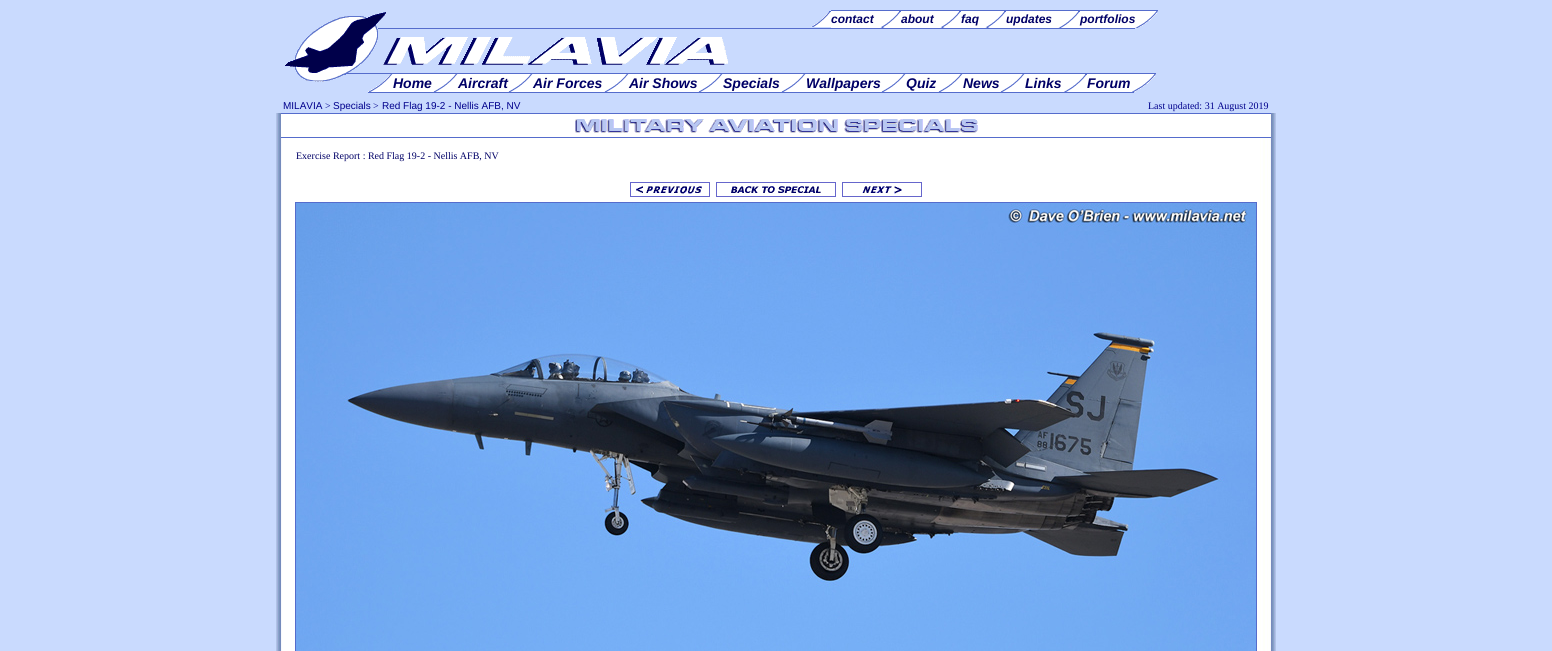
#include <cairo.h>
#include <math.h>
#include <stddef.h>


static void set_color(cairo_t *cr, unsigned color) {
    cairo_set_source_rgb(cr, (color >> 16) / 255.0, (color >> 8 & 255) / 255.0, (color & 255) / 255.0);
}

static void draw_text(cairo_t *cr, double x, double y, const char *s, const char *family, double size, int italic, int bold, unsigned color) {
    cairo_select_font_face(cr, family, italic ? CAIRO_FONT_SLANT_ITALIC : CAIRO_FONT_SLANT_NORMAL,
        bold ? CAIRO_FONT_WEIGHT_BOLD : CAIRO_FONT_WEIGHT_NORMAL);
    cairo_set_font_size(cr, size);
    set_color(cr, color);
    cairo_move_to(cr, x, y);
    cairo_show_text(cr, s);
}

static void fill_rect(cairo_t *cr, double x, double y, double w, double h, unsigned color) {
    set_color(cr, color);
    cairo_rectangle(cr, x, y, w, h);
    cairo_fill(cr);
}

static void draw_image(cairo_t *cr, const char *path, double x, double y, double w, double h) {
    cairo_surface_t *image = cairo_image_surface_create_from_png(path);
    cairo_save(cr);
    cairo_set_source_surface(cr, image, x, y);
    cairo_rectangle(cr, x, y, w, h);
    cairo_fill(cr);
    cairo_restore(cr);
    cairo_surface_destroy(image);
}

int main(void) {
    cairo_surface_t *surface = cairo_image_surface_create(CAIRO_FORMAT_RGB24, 1552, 651);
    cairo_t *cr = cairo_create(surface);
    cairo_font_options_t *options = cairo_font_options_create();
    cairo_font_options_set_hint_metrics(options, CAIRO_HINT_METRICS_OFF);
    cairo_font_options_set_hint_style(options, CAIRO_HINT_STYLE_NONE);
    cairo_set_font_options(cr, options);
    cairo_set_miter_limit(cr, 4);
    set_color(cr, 0xC9DAFE);
    cairo_paint(cr);
    draw_image(cr, "assets/img1.png", 285, 12, 443, 70);
    fill_rect(cr, 378, 28, 757, 1, 0x556CCC);
    draw_image(cr, "assets/img2.png", 811, 11, 20, 16);
    fill_rect(cr, 831, 11, 68, 17, 0xFFFFFF);
    draw_text(cr, 831, 23, "contact", "Liberation Sans", 12, 1, 1, 0x000066);
    fill_rect(cr, 831, 10, 304, 1, 0x556CCC);
    draw_image(cr, "assets/img3.png", 881, 11, 20, 16);
    fill_rect(cr, 901, 11, 58, 17, 0xFFFFFF);
    draw_text(cr, 901, 23, "about", "Liberation Sans", 12, 1, 1, 0x000066);
    draw_image(cr, "assets/img3.png", 941, 11, 20, 16);
    fill_rect(cr, 961, 11, 43, 17, 0xFFFFFF);
    draw_text(cr, 961, 23, "faq", "Liberation Sans", 12, 1, 1, 0x000066);
    draw_image(cr, "assets/img3.png", 986, 11, 20, 16);
    fill_rect(cr, 1006, 11, 72, 17, 0xFFFFFF);
    draw_text(cr, 1006, 23, "updates", "Liberation Sans", 12, 1, 1, 0x000066);
    draw_image(cr, "assets/img4.png", 1058, 11, 22, 17);
    fill_rect(cr, 1080, 11, 55, 17, 0xFFFFFF);
    draw_text(cr, 1080, 23, "portfolios", "Liberation Sans", 12, 1, 1, 0x000066);
    draw_image(cr, "assets/img5.png", 1135, 10, 23, 18);
    draw_image(cr, "assets/img6.png", 880, 27, 21, 1);
    draw_image(cr, "assets/img6.png", 940, 27, 21, 1);
    draw_image(cr, "assets/img6.png", 985, 27, 21, 1);
    fill_rect(cr, 346, 73, 785, 1, 0x556CCC);
    draw_image(cr, "assets/img7.png", 368, 74, 25, 19);
    fill_rect(cr, 393, 74, 62, 18, 0xFFFFFF);
    draw_text(cr, 393, 88, "Home", "Liberation Sans", 14, 1, 1, 0x000066);
    fill_rect(cr, 393, 92, 738, 1, 0x556CCC);
    draw_image(cr, "assets/img8.png", 433, 74, 25, 18);
    fill_rect(cr, 458, 74, 72, 18, 0xFFFFFF);
    draw_text(cr, 458, 88, "Aircraft", "Liberation Sans", 14, 1, 1, 0x000066);
    draw_image(cr, "assets/img9.png", 508, 74, 25, 18);
    fill_rect(cr, 533, 74, 93, 18, 0xFFFFFF);
    draw_text(cr, 533, 88, "Air Forces", "Liberation Sans", 14, 1, 1, 0x000066);
    draw_image(cr, "assets/img8.png", 604, 74, 25, 18);
    fill_rect(cr, 629, 74, 91, 18, 0xFFFFFF);
    draw_text(cr, 629, 88, "Air Shows", "Liberation Sans", 14, 1, 1, 0x000066);
    draw_image(cr, "assets/img8.png", 698, 74, 25, 18);
    fill_rect(cr, 723, 74, 80, 18, 0xFFFFFF);
    draw_text(cr, 723, 88, "Specials", "Liberation Sans", 14, 1, 1, 0x000066);
    draw_image(cr, "assets/img8.png", 781, 74, 25, 18);
    fill_rect(cr, 806, 74, 97, 18, 0xFFFFFF);
    draw_text(cr, 806, 88, "Wallpapers", "Liberation Sans", 14, 1, 1, 0x000066);
    draw_image(cr, "assets/img8.png", 881, 74, 25, 18);
    fill_rect(cr, 906, 74, 54, 18, 0xFFFFFF);
    draw_text(cr, 906, 88, "Quiz", "Liberation Sans", 14, 1, 1, 0x000066);
    draw_image(cr, "assets/img8.png", 938, 74, 25, 18);
    fill_rect(cr, 963, 74, 59, 18, 0xFFFFFF);
    draw_text(cr, 963, 88, "News", "Liberation Sans", 14, 1, 1, 0x000066);
    draw_image(cr, "assets/img8.png", 1000, 74, 25, 18);
    fill_rect(cr, 1025, 74, 60, 18, 0xFFFFFF);
    draw_text(cr, 1025, 88, "Links", "Liberation Sans", 14, 1, 1, 0x000066);
    draw_image(cr, "assets/img10.png", 1064, 74, 23, 18);
    fill_rect(cr, 1087, 74, 44, 18, 0xFFFFFF);
    draw_text(cr, 1087, 88, "Forum", "Liberation Sans", 14, 1, 1, 0x000066);
    draw_image(cr, "assets/img11.png", 1131, 73, 25, 20);
    draw_text(cr, 283, 109, "MILAVIA", "Liberation Sans", 10, 0, 0, 0x00008C);
    draw_text(cr, 325, 109, ">", "Liberation Serif", 10, 0, 0, 0x00008C);
    draw_text(cr, 333, 109, "Specials", "Liberation Sans", 10, 0, 0, 0x00008C);
    draw_text(cr, 373, 109, ">", "Liberation Serif", 10, 0, 0, 0x00008C);
    draw_text(cr, 382, 109, "Red Flag 19-2 - Nellis AFB, NV", "Liberation Sans", 10, 0, 0, 0x00008C);
    draw_text(cr, 1148, 109, "Last updated: 31 August 2019", "Liberation Serif", 10, 0, 0, 0x00008C);
    draw_image(cr, "assets/img12.png", 276, 113, 1000, 538);
    fill_rect(cr, 281, 114, 990, 23, 0xFFFFFF);
    fill_rect(cr, 281, 113, 990, 1, 0x556CCC);
    fill_rect(cr, 281, 137, 990, 1, 0x556CCC);
    draw_image(cr, "assets/img13.png", 575, 119, 403, 14);
    draw_text(cr, 296, 159, "Exercise Report : Red Flag 19-2 - Nellis AFB, NV", "Liberation Serif", 10, 0, 0, 0x000066);
    draw_image(cr, "assets/img14.png", 630, 182, 80, 15);
    draw_image(cr, "assets/img15.png", 716, 182, 120, 15);
    draw_image(cr, "assets/img16.png", 842, 182, 80, 15);
    cairo_rectangle(cr, 295.5, 202.5, 961, 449);
    set_color(cr, 0x556CCC);
    cairo_set_line_width(cr, 1);
    cairo_stroke(cr);
    draw_image(cr, "assets/img17.png", 296, 203, 960, 448);
    cairo_surface_write_to_png(surface, "output.png");
    cairo_font_options_destroy(options);
    cairo_destroy(cr);
    cairo_surface_destroy(surface);
    return 0;
}
